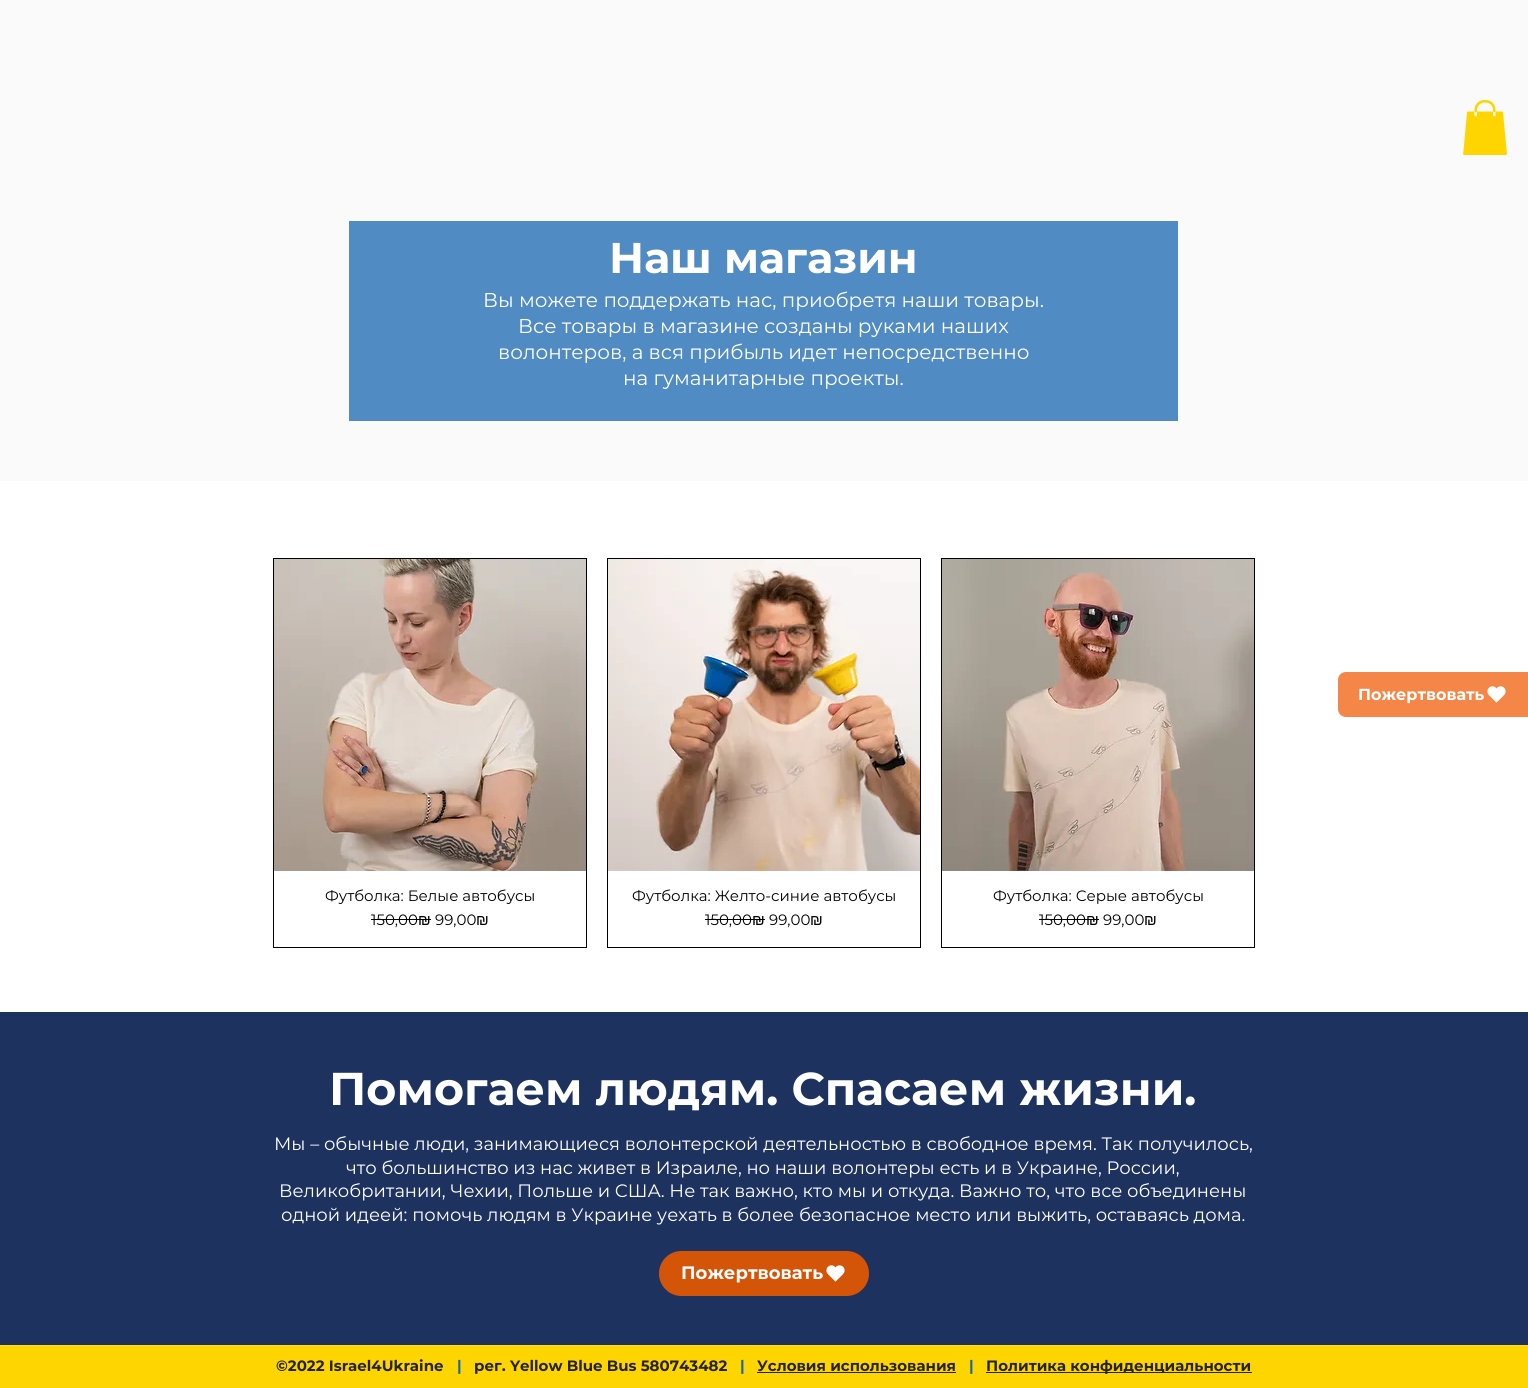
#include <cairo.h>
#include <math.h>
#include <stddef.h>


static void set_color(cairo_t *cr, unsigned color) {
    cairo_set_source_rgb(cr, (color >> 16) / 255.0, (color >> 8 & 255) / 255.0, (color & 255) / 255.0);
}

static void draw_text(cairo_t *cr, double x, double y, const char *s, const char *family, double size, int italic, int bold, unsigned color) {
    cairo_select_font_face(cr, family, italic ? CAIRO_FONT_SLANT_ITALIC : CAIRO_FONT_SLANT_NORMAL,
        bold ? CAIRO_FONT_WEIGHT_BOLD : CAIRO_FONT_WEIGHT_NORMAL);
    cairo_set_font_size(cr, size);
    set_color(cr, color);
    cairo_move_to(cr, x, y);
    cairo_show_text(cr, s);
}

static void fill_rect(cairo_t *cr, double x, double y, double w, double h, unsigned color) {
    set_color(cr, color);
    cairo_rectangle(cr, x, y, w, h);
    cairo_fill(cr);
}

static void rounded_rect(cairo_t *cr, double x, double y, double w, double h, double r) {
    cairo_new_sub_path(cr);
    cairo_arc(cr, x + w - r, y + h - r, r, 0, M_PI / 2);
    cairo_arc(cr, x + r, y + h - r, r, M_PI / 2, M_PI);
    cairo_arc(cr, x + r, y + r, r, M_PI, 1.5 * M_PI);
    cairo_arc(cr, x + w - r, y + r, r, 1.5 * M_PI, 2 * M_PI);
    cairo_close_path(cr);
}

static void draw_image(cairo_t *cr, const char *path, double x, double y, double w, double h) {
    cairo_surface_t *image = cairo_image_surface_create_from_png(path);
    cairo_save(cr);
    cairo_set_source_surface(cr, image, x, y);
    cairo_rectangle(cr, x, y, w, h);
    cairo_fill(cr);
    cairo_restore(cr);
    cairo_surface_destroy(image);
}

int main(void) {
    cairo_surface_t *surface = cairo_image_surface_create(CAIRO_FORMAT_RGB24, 1528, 1388);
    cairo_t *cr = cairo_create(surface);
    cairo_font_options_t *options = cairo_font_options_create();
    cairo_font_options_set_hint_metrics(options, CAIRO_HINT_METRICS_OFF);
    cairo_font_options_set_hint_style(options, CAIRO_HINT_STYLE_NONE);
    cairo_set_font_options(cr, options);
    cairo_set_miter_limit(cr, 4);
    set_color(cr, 0xFFFFFF);
    cairo_paint(cr);
    fill_rect(cr, 0, 0, 1528, 481, 0xFAFAFA);
    draw_image(cr, "assets/img1.png", 1463, 100, 44, 55);
    fill_rect(cr, 349, 221, 829, 200, 0x508BC3);
    draw_text(cr, 609, 273, "Наш магазин", "Montserrat", 43, 0, 1, 0xFFFFFF);
    draw_text(cr, 483, 307, "Вы можете поддержать нас, приобретя наши товары.", "Montserrat", 20, 0, 0, 0xFFFFFF);
    draw_text(cr, 518, 333, "Все товары в магазине созданы руками наших", "Montserrat", 20, 0, 0, 0xFFFFFF);
    draw_text(cr, 498, 359, "волонтеров, а вся прибыль идет непосредственно", "Montserrat", 20, 0, 0, 0xFFFFFF);
    draw_text(cr, 623, 385, "на гуманитарные проекты.", "Montserrat", 20, 0, 0, 0xFFFFFF);
    cairo_rectangle(cr, 273.5, 558.5, 313, 389);
    set_color(cr, 0x000000);
    cairo_set_line_width(cr, 1);
    cairo_stroke(cr);
    draw_image(cr, "assets/img2.png", 274, 559, 312, 312);
    draw_text(cr, 325, 901, "Футболка: Белые автобусы", "Montserrat", 15, 0, 0, 0x000000);
    draw_text(cr, 371, 925, "150,00", "Montserrat", 15, 0, 0, 0x000000);
    draw_text(cr, 418, 925, "₪", "Liberation Sans", 15, 0, 0, 0x000000);
    fill_rect(cr, 371, 919, 60, 1, 0x000000);
    draw_text(cr, 435, 925, "99,00", "Montserrat", 15, 0, 0, 0x000000);
    draw_text(cr, 476, 925, "₪", "Liberation Sans", 15, 0, 0, 0x000000);
    cairo_rectangle(cr, 607.5, 558.5, 313, 389);
    cairo_stroke(cr);
    draw_image(cr, "assets/img3.png", 608, 559, 312, 312);
    draw_text(cr, 632, 901, "Футболка: Желто-синие автобусы", "Montserrat", 15, 0, 0, 0x000000);
    draw_text(cr, 705, 925, "150,00", "Montserrat", 15, 0, 0, 0x000000);
    draw_text(cr, 752, 925, "₪", "Liberation Sans", 15, 0, 0, 0x000000);
    fill_rect(cr, 705, 919, 60, 1, 0x000000);
    draw_text(cr, 769, 925, "99,00", "Montserrat", 15, 0, 0, 0x000000);
    draw_text(cr, 810, 925, "₪", "Liberation Sans", 15, 0, 0, 0x000000);
    cairo_rectangle(cr, 941.5, 558.5, 313, 389);
    cairo_stroke(cr);
    draw_image(cr, "assets/img4.png", 942, 559, 312, 312);
    draw_text(cr, 993, 901, "Футболка: Серые автобусы", "Montserrat", 15, 0, 0, 0x000000);
    draw_text(cr, 1039, 925, "150,00", "Montserrat", 15, 0, 0, 0x000000);
    draw_text(cr, 1086, 925, "₪", "Liberation Sans", 15, 0, 0, 0x000000);
    fill_rect(cr, 1039, 919, 60, 1, 0x000000);
    draw_text(cr, 1103, 925, "99,00", "Montserrat", 15, 0, 0, 0x000000);
    draw_text(cr, 1144, 925, "₪", "Liberation Sans", 15, 0, 0, 0x000000);
    fill_rect(cr, 0, 1012, 1528, 333, 0x1E3260);
    draw_text(cr, 329, 1105, "Помогаем людям. Спасаем жизни.", "Montserrat", 46, 0, 1, 0xFFFFFF);
    draw_text(cr, 274, 1150, "Мы – обычные люди, занимающиеся волонтерской деятельностью в свободное время. Так получилось,", "Montserrat", 18, 0, 0, 0xFFFFFF);
    draw_text(cr, 346, 1174, "что большинство из нас живет в Израиле, но наши волонтеры есть и в Украине, России,", "Montserrat", 18, 0, 0, 0xFFFFFF);
    draw_text(cr, 279, 1197, "Великобритании, Чехии, Польше и США. Не так важно, кто мы и откуда. Важно то, что все объединены", "Montserrat", 18, 0, 0, 0xFFFFFF);
    draw_text(cr, 281, 1221, "одной идеей: помочь людям в Украине уехать в более безопасное место или выжить, оставаясь дома.", "Montserrat", 18, 0, 0, 0xFFFFFF);
    set_color(cr, 0xF05F09);
    rounded_rect(cr, 659, 1251, 210, 45, 22.5);
    cairo_fill(cr);
    cairo_set_source_rgba(cr, 0, 0, 0, 0.12);
    rounded_rect(cr, 659, 1251, 210, 45, 22.5);
    cairo_fill(cr);
    draw_text(cr, 681, 1279, "Пожертвовать", "Montserrat", 18, 0, 1, 0xFFFFFF);
    draw_image(cr, "assets/img5.png", 826, 1265, 19, 17);
    set_color(cr, 0xF48747);
    cairo_new_path(cr);
    cairo_move_to(cr, 1346, 672);
    cairo_line_to(cr, 1528, 672);
    cairo_line_to(cr, 1528, 717);
    cairo_line_to(cr, 1346, 717);
    cairo_curve_to(cr, 1341.5, 717, 1338, 713.5, 1338, 709);
    cairo_line_to(cr, 1338, 680);
    cairo_curve_to(cr, 1338, 675.5, 1341.5, 672, 1346, 672);
    cairo_close_path(cr);
    cairo_fill(cr);
    draw_text(cr, 1358, 700, "Пожертвовать", "Montserrat", 16, 0, 1, 0xFFFFFF);
    draw_image(cr, "assets/img6.png", 1487, 686, 19, 17);
    fill_rect(cr, 0, 1346, 1528, 42, 0xFFD500);
    fill_rect(cr, 0, 1345, 1528, 1, 0xFFDB26);
    draw_text(cr, 276, 1371, "©2022 Israel4Ukraine", "Montserrat", 15, 0, 1, 0x242323);
    draw_text(cr, 457, 1371, "|", "Montserrat", 15, 0, 1, 0x1766B1);
    draw_text(cr, 474, 1371, "рег. Yellow Blue Bus 580743482", "Montserrat", 15, 0, 1, 0x242323);
    draw_text(cr, 740, 1371, "|", "Montserrat", 15, 0, 1, 0x1766B1);
    draw_text(cr, 757, 1371, "Условия использования", "Montserrat", 15, 0, 1, 0x242323);
    fill_rect(cr, 757, 1372, 199, 1, 0x242323);
    draw_text(cr, 969, 1371, "|", "Montserrat", 15, 0, 1, 0x1766B1);
    fill_rect(cr, 986, 1372, 266, 1, 0x242323);
    draw_text(cr, 986, 1371, "Политика конфиденциальности", "Montserrat", 15, 0, 1, 0x242323);
    cairo_surface_write_to_png(surface, "output.png");
    cairo_font_options_destroy(options);
    cairo_destroy(cr);
    cairo_surface_destroy(surface);
    return 0;
}
